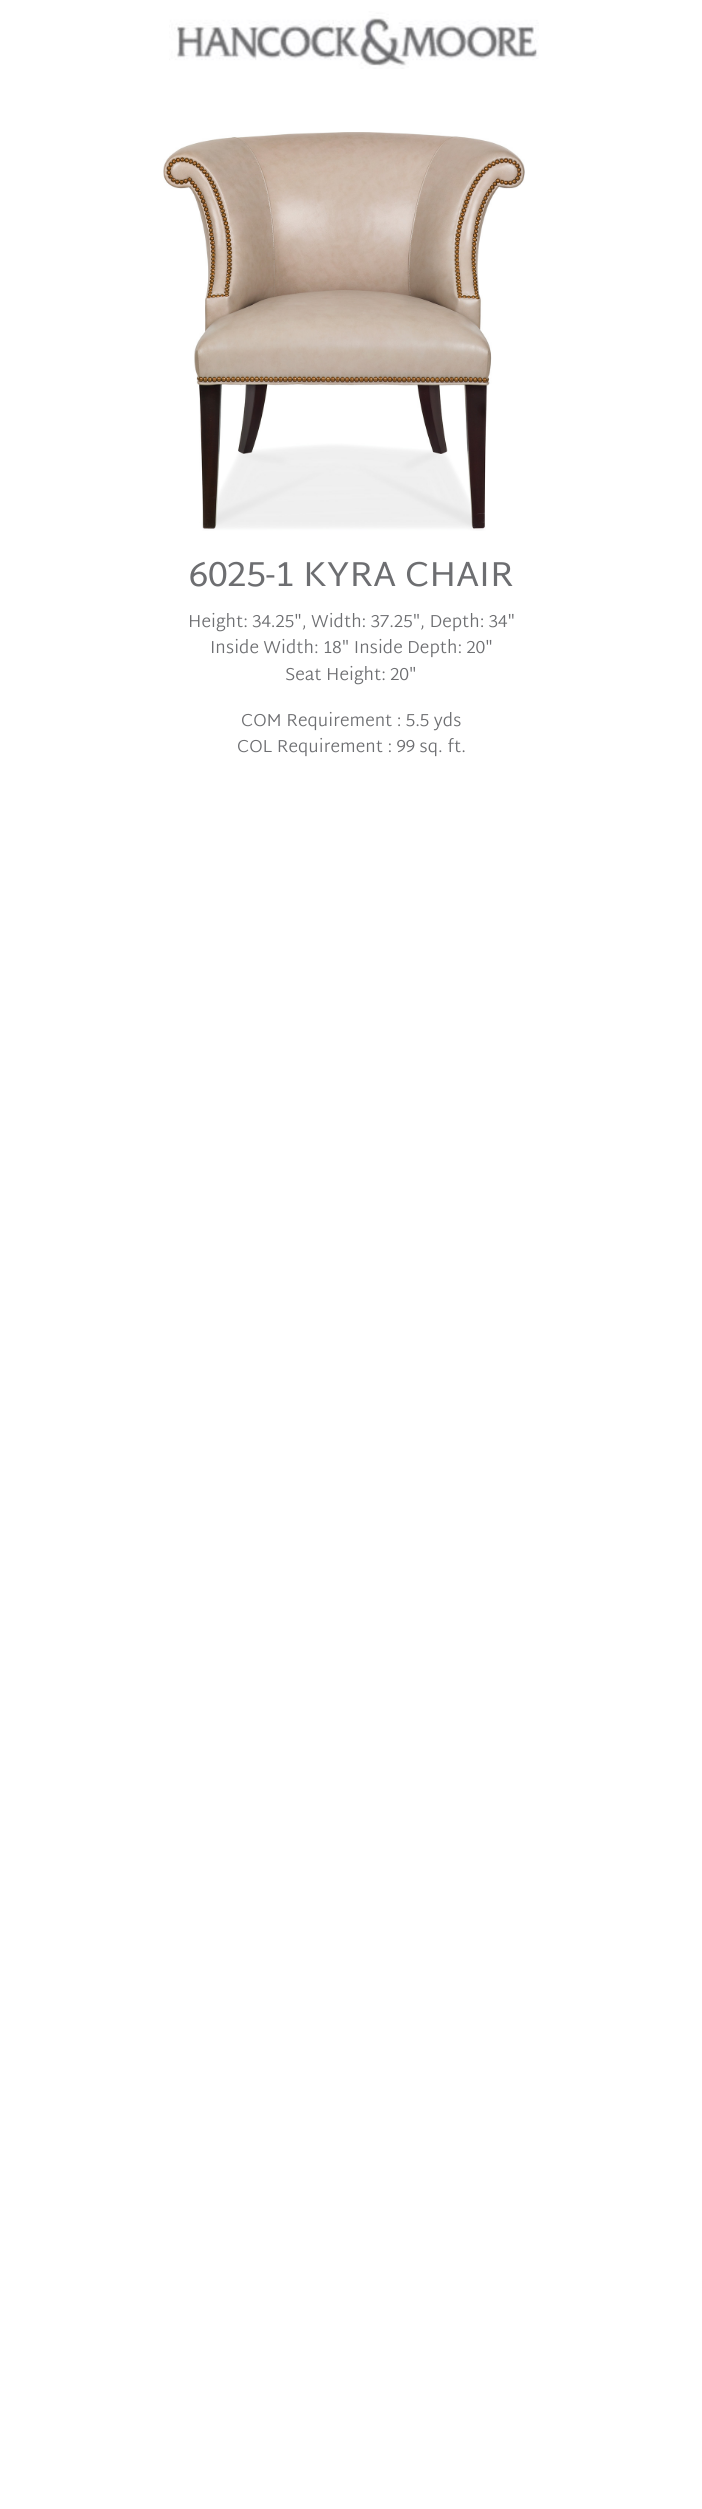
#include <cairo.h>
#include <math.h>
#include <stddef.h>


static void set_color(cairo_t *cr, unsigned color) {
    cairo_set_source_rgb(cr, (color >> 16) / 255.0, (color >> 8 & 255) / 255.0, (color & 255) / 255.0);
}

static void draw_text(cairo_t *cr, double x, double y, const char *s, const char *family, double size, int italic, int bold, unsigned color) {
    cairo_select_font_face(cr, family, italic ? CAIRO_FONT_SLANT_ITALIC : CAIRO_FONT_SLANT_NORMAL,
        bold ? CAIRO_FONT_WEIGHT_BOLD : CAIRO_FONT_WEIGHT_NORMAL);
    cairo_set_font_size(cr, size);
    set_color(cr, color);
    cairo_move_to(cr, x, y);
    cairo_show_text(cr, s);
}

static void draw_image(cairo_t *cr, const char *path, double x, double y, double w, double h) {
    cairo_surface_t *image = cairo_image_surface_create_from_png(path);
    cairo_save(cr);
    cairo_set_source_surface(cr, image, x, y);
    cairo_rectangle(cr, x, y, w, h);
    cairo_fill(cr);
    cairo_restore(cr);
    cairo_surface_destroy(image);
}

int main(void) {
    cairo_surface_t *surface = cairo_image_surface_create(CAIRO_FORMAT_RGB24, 702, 2509);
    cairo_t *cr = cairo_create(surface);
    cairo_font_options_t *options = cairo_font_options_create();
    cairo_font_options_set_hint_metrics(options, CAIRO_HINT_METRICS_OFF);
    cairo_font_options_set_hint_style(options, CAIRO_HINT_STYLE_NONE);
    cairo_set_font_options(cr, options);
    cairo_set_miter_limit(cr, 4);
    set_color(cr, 0xFFFFFF);
    cairo_paint(cr);
    draw_image(cr, "assets/img1.png", 169, 11, 370, 58);
    draw_image(cr, "assets/img2.png", 163, 132, 362, 399);
    draw_text(cr, 189, 586, "6025-1 KYRA CHAIR", "Martel Sans", 35, 0, 0, 0x6D6E71);
    draw_text(cr, 188, 627, "Height: 34.25\", Width: 37.25\", Depth: 34\"", "Martel Sans Light", 17.5, 0, 0, 0x6D6E71);
    draw_text(cr, 210, 653, "Inside Width: 18\" Inside Depth: 20\"", "Martel Sans Light", 17.5, 0, 0, 0x6D6E71);
    draw_text(cr, 285, 680, "Seat Height: 20\"", "Martel Sans Light", 17.5, 0, 0, 0x6D6E71);
    draw_text(cr, 241, 726, "COM Requirement : 5.5 yds", "Martel Sans Light", 17.5, 0, 0, 0x6D6E71);
    draw_text(cr, 237, 752, "COL Requirement : 99 sq. ft.", "Martel Sans Light", 17.5, 0, 0, 0x6D6E71);
    cairo_surface_write_to_png(surface, "output.png");
    cairo_font_options_destroy(options);
    cairo_destroy(cr);
    cairo_surface_destroy(surface);
    return 0;
}
